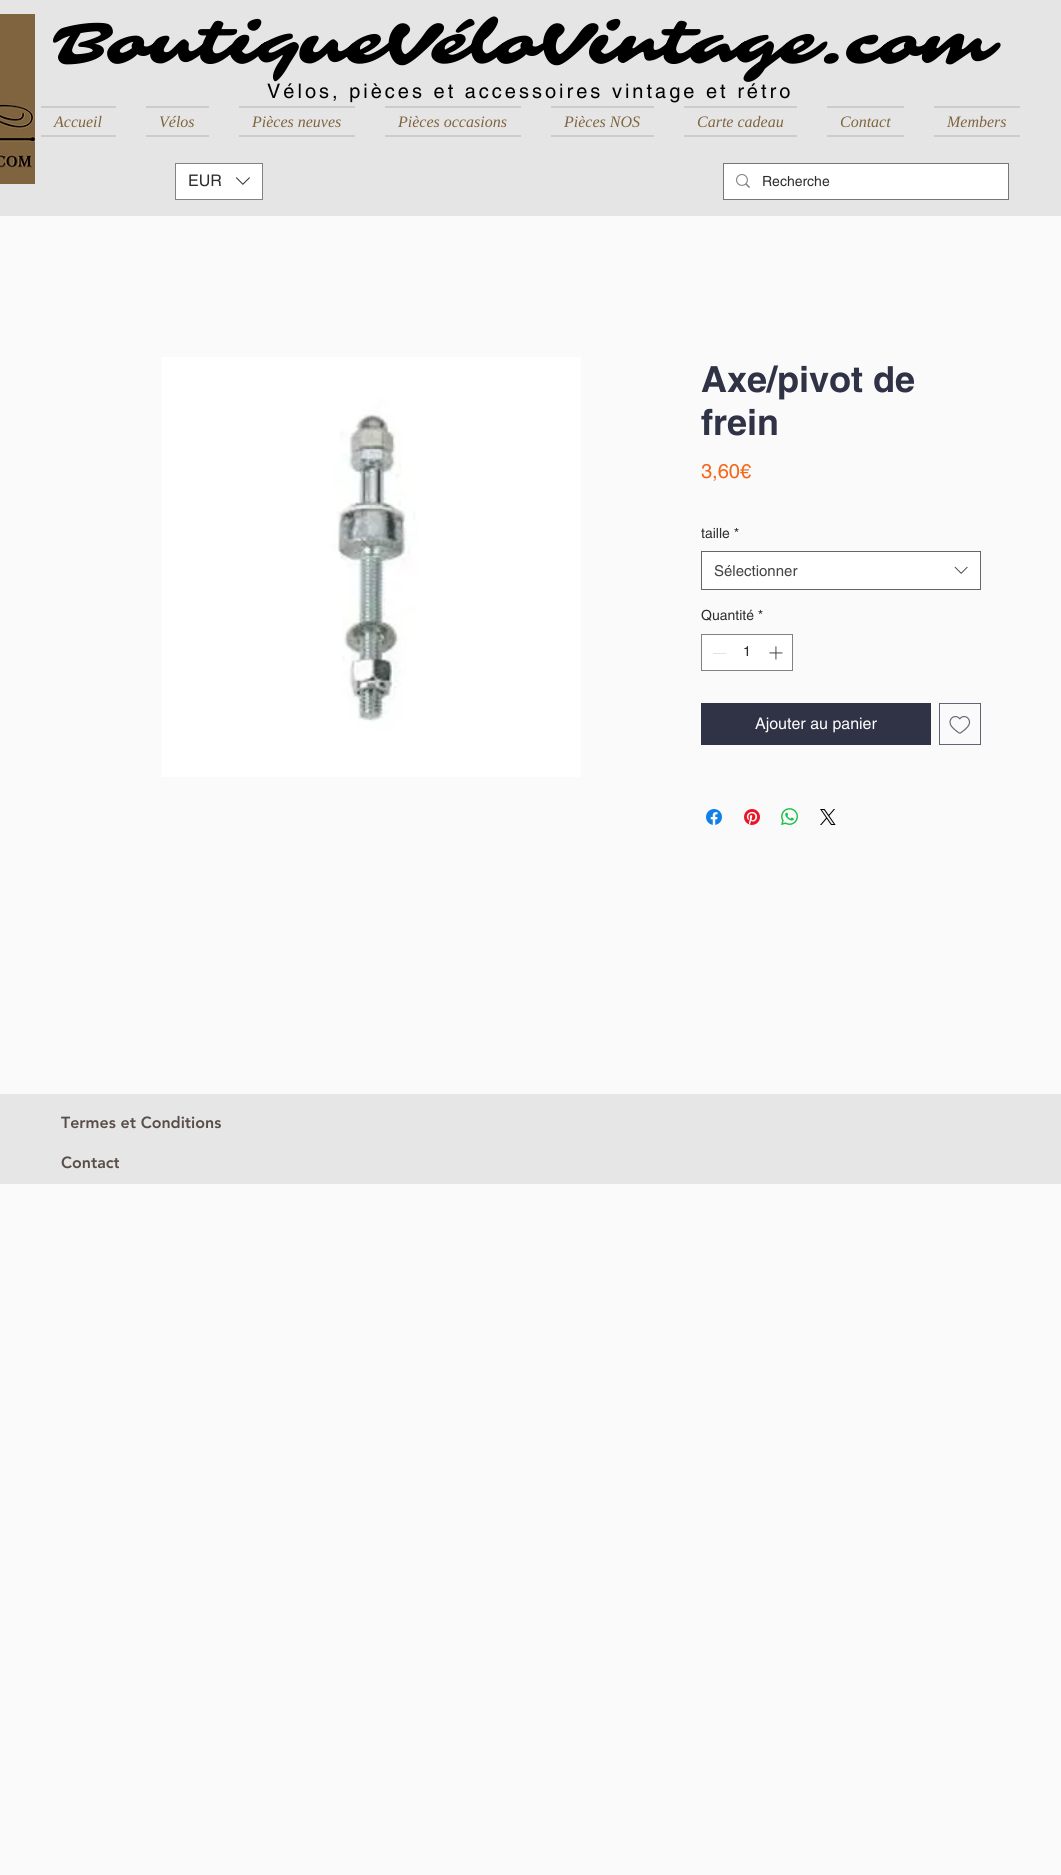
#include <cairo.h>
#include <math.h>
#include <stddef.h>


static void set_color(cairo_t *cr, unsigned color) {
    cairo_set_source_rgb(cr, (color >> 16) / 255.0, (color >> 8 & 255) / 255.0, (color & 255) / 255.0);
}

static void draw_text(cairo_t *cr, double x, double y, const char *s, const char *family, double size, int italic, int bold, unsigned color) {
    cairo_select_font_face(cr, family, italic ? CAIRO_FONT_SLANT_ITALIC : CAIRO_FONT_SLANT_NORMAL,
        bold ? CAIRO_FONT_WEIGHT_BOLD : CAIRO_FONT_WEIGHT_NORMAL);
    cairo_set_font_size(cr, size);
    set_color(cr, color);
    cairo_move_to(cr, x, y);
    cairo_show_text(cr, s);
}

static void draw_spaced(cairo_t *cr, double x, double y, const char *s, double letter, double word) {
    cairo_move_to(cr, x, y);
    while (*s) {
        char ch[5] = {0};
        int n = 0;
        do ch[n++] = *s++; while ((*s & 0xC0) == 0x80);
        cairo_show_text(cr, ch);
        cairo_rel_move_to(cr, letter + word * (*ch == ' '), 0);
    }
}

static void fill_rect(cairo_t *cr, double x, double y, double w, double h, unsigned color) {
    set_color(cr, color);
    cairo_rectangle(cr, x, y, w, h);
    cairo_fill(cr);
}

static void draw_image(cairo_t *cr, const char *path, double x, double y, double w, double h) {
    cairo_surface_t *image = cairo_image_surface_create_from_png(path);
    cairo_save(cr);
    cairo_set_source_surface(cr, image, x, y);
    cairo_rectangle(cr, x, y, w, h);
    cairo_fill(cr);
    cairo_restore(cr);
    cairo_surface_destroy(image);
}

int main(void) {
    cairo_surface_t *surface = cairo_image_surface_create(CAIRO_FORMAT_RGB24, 1061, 1875);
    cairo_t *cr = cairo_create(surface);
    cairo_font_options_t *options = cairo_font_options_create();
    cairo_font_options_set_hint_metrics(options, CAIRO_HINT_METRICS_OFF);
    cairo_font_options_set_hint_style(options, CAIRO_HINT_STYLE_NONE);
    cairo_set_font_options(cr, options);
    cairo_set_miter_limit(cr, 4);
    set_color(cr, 0xFAFAFA);
    cairo_paint(cr);
    fill_rect(cr, 0, 0, 1061, 216, 0xE5E5E5);
    draw_image(cr, "assets/img1.png", 0, 14, 35, 170);
    draw_text(cr, 53, 63, "BoutiqueVéloVintage.com", "Sarina", 60, 0, 0, 0x000000);
    cairo_select_font_face(cr, "helvetica", CAIRO_FONT_SLANT_NORMAL, CAIRO_FONT_WEIGHT_NORMAL);
    cairo_set_font_size(cr, 20);
    draw_spaced(cr, 267, 98, "Vélos, pièces et accessoires vintage et rétro", 3, 0);
    fill_rect(cr, 41, 106, 75, 2, 0xCCCCCC);
    fill_rect(cr, 41, 135, 75, 2, 0xCCCCCC);
    draw_text(cr, 54, 127, "Accueil", "Liberation Serif", 16, 1, 0, 0x80643F);
    fill_rect(cr, 146, 106, 63, 2, 0xCCCCCC);
    fill_rect(cr, 146, 135, 63, 2, 0xCCCCCC);
    draw_text(cr, 159, 127, "Vélos", "Liberation Serif", 16, 1, 0, 0x80643F);
    fill_rect(cr, 239, 106, 116, 2, 0xCCCCCC);
    fill_rect(cr, 239, 135, 116, 2, 0xCCCCCC);
    draw_text(cr, 252, 127, "Pièces neuves", "Liberation Serif", 16, 1, 0, 0x80643F);
    fill_rect(cr, 385, 106, 136, 2, 0xCCCCCC);
    fill_rect(cr, 385, 135, 136, 2, 0xCCCCCC);
    draw_text(cr, 398, 127, "Pièces occasions", "Liberation Serif", 16, 1, 0, 0x80643F);
    fill_rect(cr, 551, 106, 103, 2, 0xCCCCCC);
    fill_rect(cr, 551, 135, 103, 2, 0xCCCCCC);
    draw_text(cr, 564, 127, "Pièces NOS", "Liberation Serif", 16, 1, 0, 0x80643F);
    fill_rect(cr, 684, 106, 113, 2, 0xCCCCCC);
    fill_rect(cr, 684, 135, 113, 2, 0xCCCCCC);
    draw_text(cr, 697, 127, "Carte cadeau", "Liberation Serif", 16, 1, 0, 0x80643F);
    fill_rect(cr, 827, 106, 77, 2, 0xCCCCCC);
    fill_rect(cr, 827, 135, 77, 2, 0xCCCCCC);
    draw_text(cr, 840, 127, "Contact", "Liberation Serif", 16, 1, 0, 0x80643F);
    fill_rect(cr, 934, 106, 86, 2, 0xCCCCCC);
    fill_rect(cr, 934, 135, 86, 2, 0xCCCCCC);
    draw_text(cr, 947, 127, "Members", "Liberation Serif", 16, 1, 0, 0x80643F);
    set_color(cr, 0xFFFFFF);
    cairo_rectangle(cr, 175.5, 163.5, 87, 36);
    cairo_fill_preserve(cr);
    set_color(cr, 0x828282);
    cairo_set_line_width(cr, 1);
    cairo_stroke(cr);
    draw_text(cr, 188, 186, "EUR", "helvetica", 16, 0, 0, 0x2F2E2E);
    draw_image(cr, "assets/img2.png", 235, 177, 15, 8);
    cairo_rectangle(cr, 723.5, 163.5, 285, 36);
    set_color(cr, 0x787777);
    cairo_stroke(cr);
    fill_rect(cr, 724, 164, 284, 35, 0xFFFFFF);
    draw_image(cr, "assets/img3.png", 736, 174, 14, 14);
    draw_text(cr, 762, 186, "Recherche", "helvetica", 14, 0, 0, 0x2F2E2E);
    draw_image(cr, "assets/img4.png", 161, 357, 420, 420);
    draw_text(cr, 701, 392, "Axe/pivot de", "helvetica", 36, 0, 1, 0x2F3345);
    draw_text(cr, 701, 435, "frein", "helvetica", 36, 0, 1, 0x2F3345);
    draw_text(cr, 701, 478, "3,60€", "helvetica", 20, 0, 0, 0xF56618);
    draw_text(cr, 701, 538, "taille *", "helvetica", 14, 0, 0, 0x2F2E2E);
    set_color(cr, 0xFFFFFF);
    cairo_rectangle(cr, 701.5, 551.5, 279, 38);
    cairo_fill_preserve(cr);
    set_color(cr, 0x666666);
    cairo_stroke(cr);
    draw_text(cr, 714, 576, "Sélectionner", "helvetica", 15, 0, 0, 0x444444);
    draw_image(cr, "assets/img5.png", 954, 566, 14, 8);
    draw_text(cr, 701, 620, "Quantité *", "helvetica", 14, 0, 0, 0x2F2E2E);
    set_color(cr, 0xFFFFFF);
    cairo_rectangle(cr, 701.5, 634.5, 91, 36);
    cairo_fill_preserve(cr);
    set_color(cr, 0x828282);
    cairo_stroke(cr);
    fill_rect(cr, 713, 653, 13, 1, 0xE3E3E3);
    draw_text(cr, 743, 656, "1", "helvetica", 14, 0, 0, 0x2F2E2E);
    draw_image(cr, "assets/img6.png", 769, 646, 14, 14);
    fill_rect(cr, 701, 703, 230, 42, 0x2F3345);
    draw_text(cr, 755, 729, "Ajouter au panier", "helvetica", 16, 0, 0, 0xFFFFFF);
    cairo_rectangle(cr, 939.5, 703.5, 41, 41);
    set_color(cr, 0x616473);
    cairo_stroke(cr);
    draw_image(cr, "assets/img7.png", 949, 716, 22, 18);
    draw_image(cr, "assets/img8.png", 706, 809, 16, 16);
    draw_image(cr, "assets/img9.png", 744, 809, 16, 16);
    draw_image(cr, "assets/img10.png", 781, 808, 17, 17);
    draw_image(cr, "assets/img11.png", 820, 809, 16, 16);
    fill_rect(cr, 0, 1094, 1061, 90, 0xE6E6E6);
    draw_text(cr, 61, 1128, "Termes et Conditions", "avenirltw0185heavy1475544 Black", 16, 0, 0, 0x594E48);
    draw_text(cr, 61, 1168, "Contact", "avenirltw0185heavy1475544 Black", 16, 0, 0, 0x594E48);
    cairo_surface_write_to_png(surface, "output.png");
    cairo_font_options_destroy(options);
    cairo_destroy(cr);
    cairo_surface_destroy(surface);
    return 0;
}
